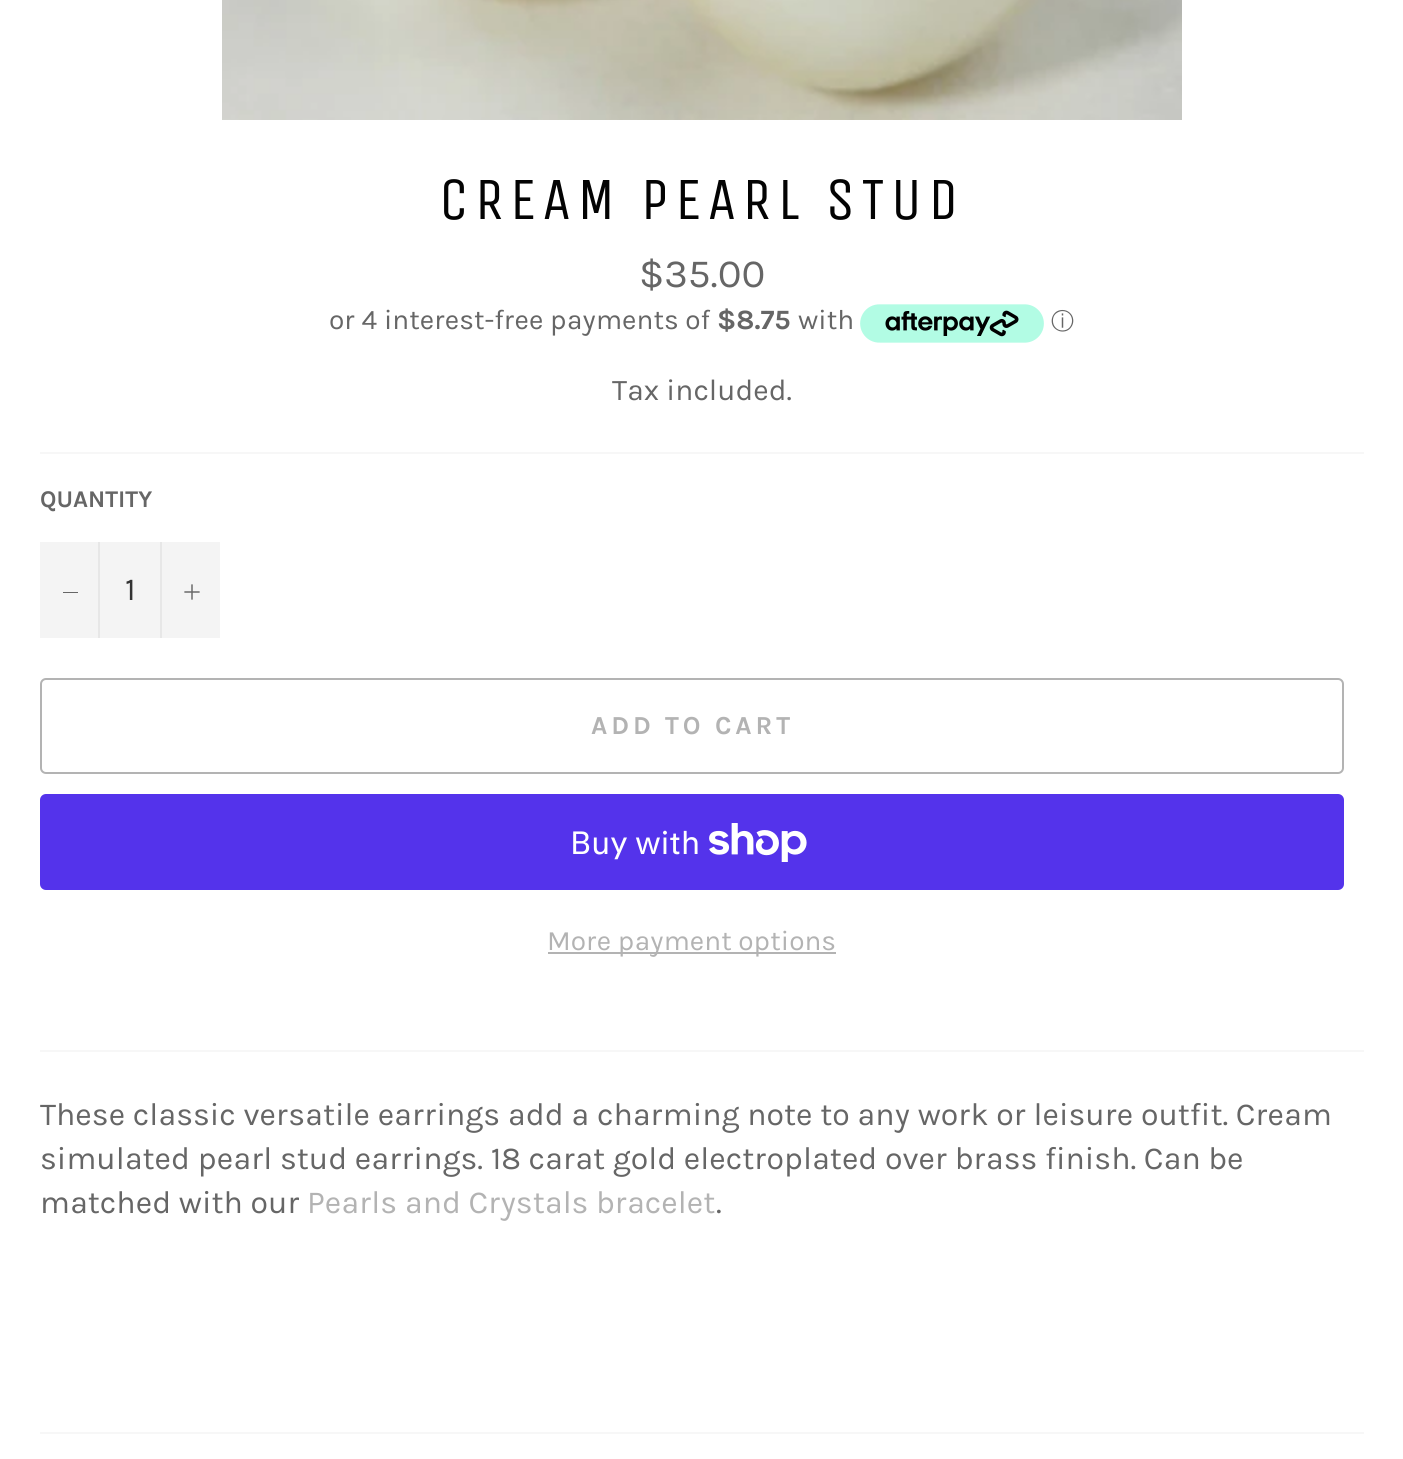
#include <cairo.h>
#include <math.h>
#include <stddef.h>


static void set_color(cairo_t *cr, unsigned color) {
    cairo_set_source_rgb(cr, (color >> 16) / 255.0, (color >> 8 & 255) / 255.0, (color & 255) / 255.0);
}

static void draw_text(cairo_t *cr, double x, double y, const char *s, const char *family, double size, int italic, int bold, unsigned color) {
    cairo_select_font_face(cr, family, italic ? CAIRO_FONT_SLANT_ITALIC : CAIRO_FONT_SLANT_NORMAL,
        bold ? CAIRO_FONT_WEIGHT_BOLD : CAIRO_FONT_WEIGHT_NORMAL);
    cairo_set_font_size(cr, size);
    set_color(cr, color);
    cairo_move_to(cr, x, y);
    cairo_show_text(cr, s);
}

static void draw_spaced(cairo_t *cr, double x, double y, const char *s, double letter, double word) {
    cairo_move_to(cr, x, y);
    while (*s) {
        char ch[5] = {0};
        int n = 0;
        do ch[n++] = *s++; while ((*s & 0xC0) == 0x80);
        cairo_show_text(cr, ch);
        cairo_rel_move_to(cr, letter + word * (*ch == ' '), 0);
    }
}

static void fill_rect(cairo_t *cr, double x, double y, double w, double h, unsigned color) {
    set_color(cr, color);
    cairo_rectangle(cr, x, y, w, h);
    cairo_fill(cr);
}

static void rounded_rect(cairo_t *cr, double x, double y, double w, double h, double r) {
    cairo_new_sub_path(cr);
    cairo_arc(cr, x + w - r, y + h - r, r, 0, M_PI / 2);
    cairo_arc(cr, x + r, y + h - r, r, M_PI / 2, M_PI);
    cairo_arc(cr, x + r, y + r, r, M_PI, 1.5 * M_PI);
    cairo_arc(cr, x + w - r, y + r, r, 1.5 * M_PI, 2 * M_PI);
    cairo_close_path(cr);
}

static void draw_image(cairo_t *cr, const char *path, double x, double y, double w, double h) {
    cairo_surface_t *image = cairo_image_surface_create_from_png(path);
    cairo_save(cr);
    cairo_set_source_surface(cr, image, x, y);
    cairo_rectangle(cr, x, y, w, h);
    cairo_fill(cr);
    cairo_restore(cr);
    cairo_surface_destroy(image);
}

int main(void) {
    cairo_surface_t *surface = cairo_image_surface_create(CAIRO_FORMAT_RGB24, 1403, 1459);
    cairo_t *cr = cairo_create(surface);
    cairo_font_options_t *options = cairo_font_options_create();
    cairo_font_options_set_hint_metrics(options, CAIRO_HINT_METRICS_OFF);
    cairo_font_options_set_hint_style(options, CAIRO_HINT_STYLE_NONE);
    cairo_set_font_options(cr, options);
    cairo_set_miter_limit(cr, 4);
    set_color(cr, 0xFFFFFF);
    cairo_paint(cr);
    draw_image(cr, "assets/img1.png", 222, 0, 960, 120);
    cairo_select_font_face(cr, "Unica One", CAIRO_FONT_SLANT_NORMAL, CAIRO_FONT_WEIGHT_NORMAL);
    cairo_set_font_size(cr, 60);
    set_color(cr, 0x030303);
    draw_spaced(cr, 439, 219, "CREAM PEARL STUD", 6, 0);
    draw_text(cr, 639, 287, "$35.00", "Karla", 40, 0, 0, 0x666666);
    draw_text(cr, 329, 329, "or 4 interest-free payments of", "Karla", 28, 0, 0, 0x666666);
    draw_text(cr, 717, 329, "$8.75", "Karla", 28, 0, 1, 0x666666);
    draw_text(cr, 798, 329, "with", "Karla", 28, 0, 0, 0x666666);
    draw_image(cr, "assets/img2.png", 860, 304, 184, 39);
    draw_text(cr, 1051, 329, "ⓘ", "WenQuanYi Zen Hei Medium", 23, 0, 0, 0x666666);
    draw_text(cr, 612, 400, "Tax included.", "Karla", 30, 0, 0, 0x666666);
    fill_rect(cr, 40, 452, 1324, 2, 0xF7F7F7);
    draw_text(cr, 40, 507, "QUANTITY", "Karla", 24, 0, 1, 0x666666);
    fill_rect(cr, 40, 542, 180, 96, 0xF4F4F4);
    fill_rect(cr, 98, 542, 2, 96, 0xE7E7E7);
    fill_rect(cr, 63, 592, 15, 1, 0x666666);
    draw_text(cr, 125, 600, "1", "Karla", 32, 0, 0, 0x333333);
    fill_rect(cr, 160, 542, 2, 96, 0xE7E7E7);
    draw_image(cr, "assets/img3.png", 184, 584, 16, 16);
    rounded_rect(cr, 41, 679, 1302, 94, 5);
    set_color(cr, 0xB3B3B3);
    cairo_stroke(cr);
    cairo_select_font_face(cr, "Karla", CAIRO_FONT_SLANT_NORMAL, CAIRO_FONT_WEIGHT_BOLD);
    cairo_set_font_size(cr, 26);
    draw_spaced(cr, 591, 734, "ADD TO CART", 3.9, 0);
    set_color(cr, 0x5433EB);
    rounded_rect(cr, 40, 794, 1304, 96, 6);
    cairo_fill(cr);
    draw_text(cr, 570, 854, "Buy with", "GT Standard", 32, 0, 0, 0xFFFFFF);
    draw_image(cr, "assets/img4.png", 709, 823, 98, 39);
    fill_rect(cr, 548, 952, 288, 2, 0xB3B3B3);
    draw_text(cr, 547, 950, "More payment options", "Karla", 28, 0, 0, 0xB3B3B3);
    fill_rect(cr, 40, 1050, 1324, 2, 0xF7F7F7);
    draw_text(cr, 40, 1125, "These classic versatile earrings add a charming note to any work or leisure outfit. Cream", "Karla", 32, 0, 0, 0x666666);
    draw_text(cr, 40, 1169, "simulated pearl stud earrings. 18 carat gold electroplated over brass finish. Can be", "Karla", 32, 0, 0, 0x666666);
    draw_text(cr, 40, 1213, "matched with our", "Karla", 32, 0, 0, 0x666666);
    draw_text(cr, 307, 1213, "Pearls and Crystals bracelet", "Karla", 32, 0, 0, 0xB3B3B3);
    draw_text(cr, 716, 1213, ".", "Karla", 32, 0, 0, 0x666666);
    fill_rect(cr, 40, 1432, 1324, 2, 0xF7F7F7);
    cairo_surface_write_to_png(surface, "output.png");
    cairo_font_options_destroy(options);
    cairo_destroy(cr);
    cairo_surface_destroy(surface);
    return 0;
}
